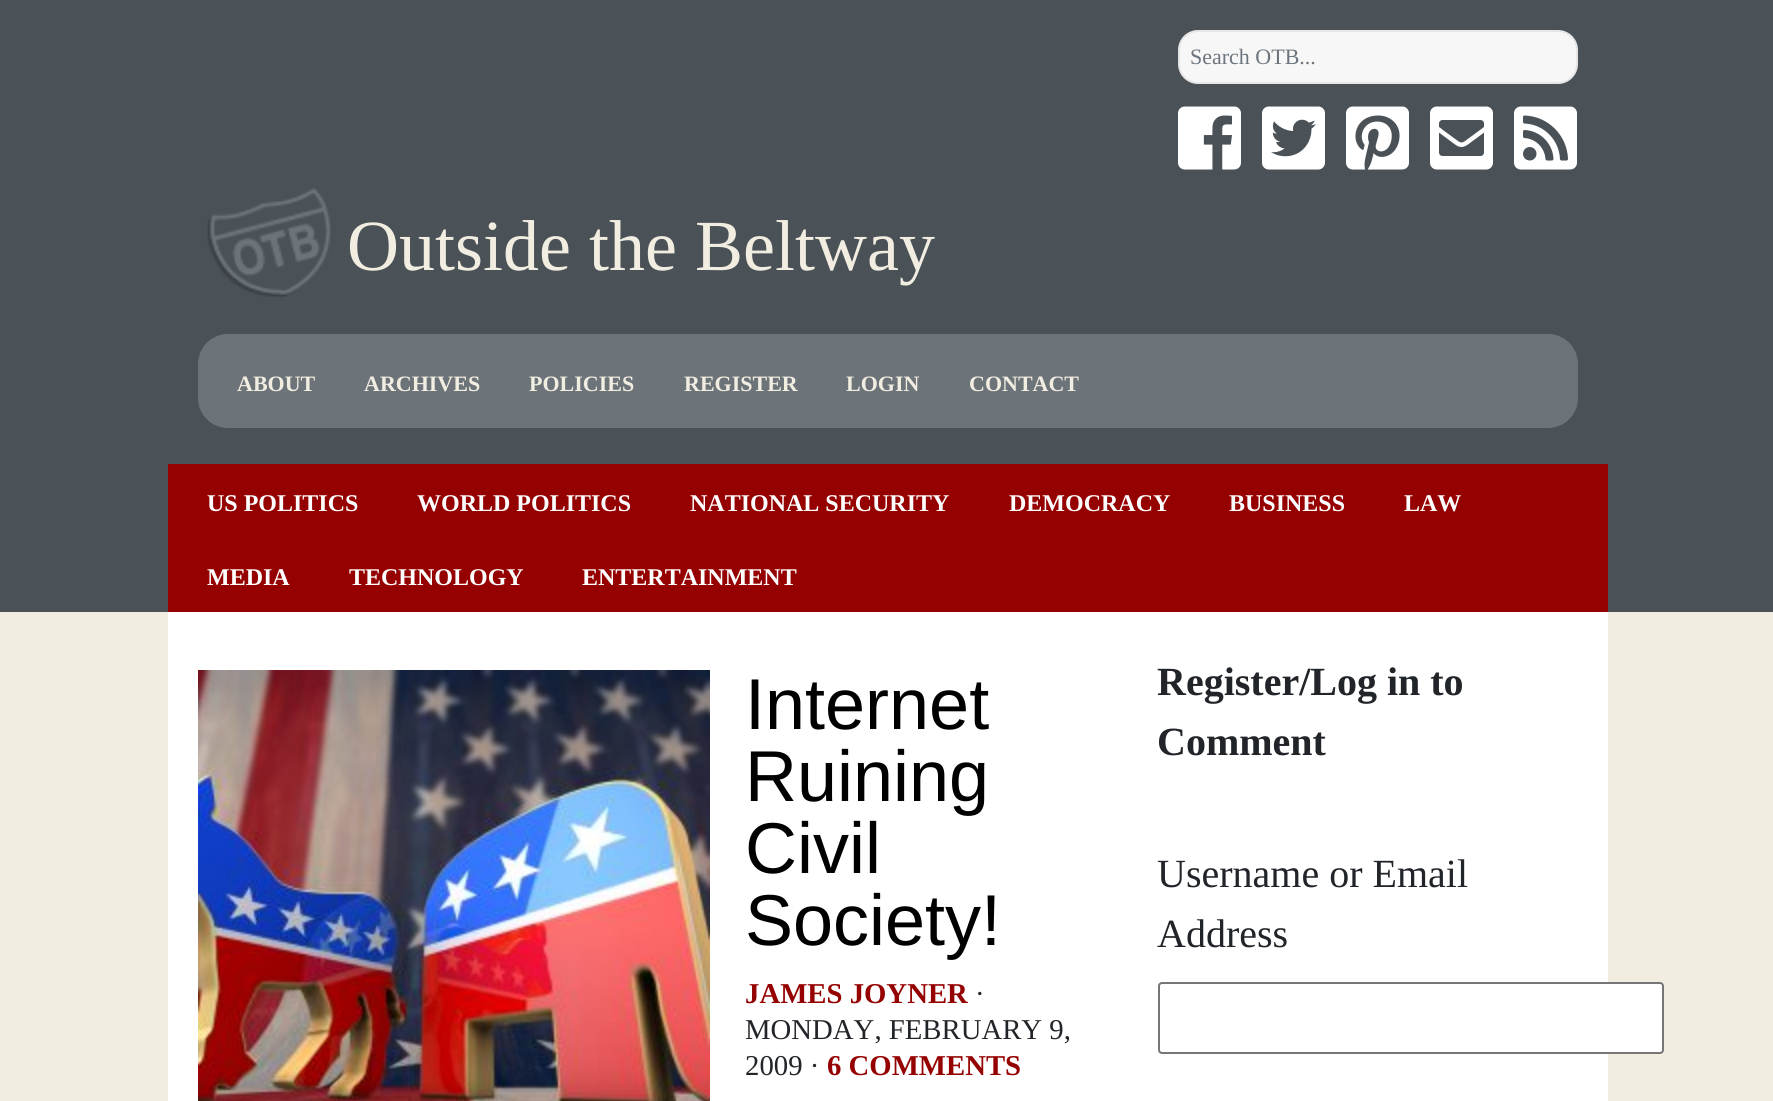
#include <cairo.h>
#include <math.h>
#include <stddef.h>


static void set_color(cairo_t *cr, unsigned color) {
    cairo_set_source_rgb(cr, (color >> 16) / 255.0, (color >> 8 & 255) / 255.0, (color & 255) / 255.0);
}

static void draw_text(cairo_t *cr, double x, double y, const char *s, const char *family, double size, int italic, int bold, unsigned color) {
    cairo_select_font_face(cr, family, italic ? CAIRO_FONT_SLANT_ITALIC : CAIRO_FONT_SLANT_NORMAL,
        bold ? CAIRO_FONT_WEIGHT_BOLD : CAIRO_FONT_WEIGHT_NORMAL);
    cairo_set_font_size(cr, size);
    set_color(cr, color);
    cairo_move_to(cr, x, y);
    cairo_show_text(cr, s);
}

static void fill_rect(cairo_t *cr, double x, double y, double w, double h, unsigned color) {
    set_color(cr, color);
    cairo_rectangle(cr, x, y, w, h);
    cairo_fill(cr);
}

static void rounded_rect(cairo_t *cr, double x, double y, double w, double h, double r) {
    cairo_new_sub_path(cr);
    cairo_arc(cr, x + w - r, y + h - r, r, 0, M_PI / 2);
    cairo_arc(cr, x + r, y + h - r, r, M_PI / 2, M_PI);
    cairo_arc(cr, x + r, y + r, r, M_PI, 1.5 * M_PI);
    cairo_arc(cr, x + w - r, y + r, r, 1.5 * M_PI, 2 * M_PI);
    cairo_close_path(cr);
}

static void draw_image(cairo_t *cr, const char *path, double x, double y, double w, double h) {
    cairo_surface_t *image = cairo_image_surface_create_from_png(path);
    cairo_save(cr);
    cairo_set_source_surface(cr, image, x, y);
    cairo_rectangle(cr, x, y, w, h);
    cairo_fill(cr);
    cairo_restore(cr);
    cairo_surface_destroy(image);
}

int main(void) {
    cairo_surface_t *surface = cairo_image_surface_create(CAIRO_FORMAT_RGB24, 1773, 1101);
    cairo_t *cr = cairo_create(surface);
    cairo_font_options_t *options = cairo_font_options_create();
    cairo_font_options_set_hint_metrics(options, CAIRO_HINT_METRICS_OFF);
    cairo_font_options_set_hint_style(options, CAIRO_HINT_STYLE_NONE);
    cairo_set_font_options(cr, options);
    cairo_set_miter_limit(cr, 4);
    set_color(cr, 0xF2EDE1);
    cairo_paint(cr);
    fill_rect(cr, 0, 0, 1773, 612, 0x4A5157);
    set_color(cr, 0xF7F7F7);
    rounded_rect(cr, 1179, 31, 398, 52, 19);
    cairo_fill_preserve(cr);
    set_color(cr, 0xE6E6E6);
    cairo_stroke(cr);
    draw_text(cr, 1190, 64, "Search OTB...", "Liberation Serif", 22, 0, 0, 0x6C757D);
    draw_image(cr, "assets/img1.png", 1178, 106, 63, 64);
    draw_image(cr, "assets/img2.png", 1262, 106, 63, 64);
    draw_image(cr, "assets/img3.png", 1346, 106, 63, 64);
    draw_image(cr, "assets/img4.png", 1430, 106, 63, 64);
    draw_image(cr, "assets/img5.png", 1514, 106, 63, 64);
    draw_image(cr, "assets/img6.png", 207, 187, 124, 111);
    draw_text(cr, 347, 270, "Outside the Beltway", "Liberation Serif", 72, 0, 0, 0xF2EDE1);
    set_color(cr, 0x6D7479);
    rounded_rect(cr, 198, 334, 1380, 94, 30);
    cairo_fill(cr);
    draw_text(cr, 237, 391, "ABOUT", "Liberation Serif", 22, 0, 1, 0xF2EDE1);
    draw_text(cr, 364, 391, "ARCHIVES", "Liberation Serif", 22, 0, 1, 0xF2EDE1);
    draw_text(cr, 529, 391, "POLICIES", "Liberation Serif", 22, 0, 1, 0xF2EDE1);
    draw_text(cr, 684, 391, "REGISTER", "Liberation Serif", 22, 0, 1, 0xF2EDE1);
    draw_text(cr, 846, 391, "LOGIN", "Liberation Serif", 22, 0, 1, 0xF2EDE1);
    draw_text(cr, 969, 391, "CONTACT", "Liberation Serif", 22, 0, 1, 0xF2EDE1);
    fill_rect(cr, 168, 464, 1440, 148, 0x950000);
    draw_text(cr, 207, 511, "US POLITICS", "Liberation Serif", 24, 0, 1, 0xFFFFFF);
    draw_text(cr, 417, 511, "WORLD POLITICS", "Liberation Serif", 24, 0, 1, 0xFFFFFF);
    draw_text(cr, 690, 511, "NATIONAL SECURITY", "Liberation Serif", 24, 0, 1, 0xFFFFFF);
    draw_text(cr, 1009, 511, "DEMOCRACY", "Liberation Serif", 24, 0, 1, 0xFFFFFF);
    draw_text(cr, 1229, 511, "BUSINESS", "Liberation Serif", 24, 0, 1, 0xFFFFFF);
    draw_text(cr, 1404, 511, "LAW", "Liberation Serif", 24, 0, 1, 0xFFFFFF);
    draw_text(cr, 207, 585, "MEDIA", "Liberation Serif", 24, 0, 1, 0xFFFFFF);
    draw_text(cr, 349, 585, "TECHNOLOGY", "Liberation Serif", 24, 0, 1, 0xFFFFFF);
    draw_text(cr, 582, 585, "ENTERTAINMENT", "Liberation Serif", 24, 0, 1, 0xFFFFFF);
    fill_rect(cr, 168, 612, 1440, 489, 0xFFFFFF);
    draw_image(cr, "assets/img7.png", 198, 670, 512, 431);
    draw_text(cr, 745, 729, "Internet", "Liberation Sans", 72, 0, 0, 0x000000);
    draw_text(cr, 745, 801, "Ruining", "Liberation Sans", 72, 0, 0, 0x000000);
    draw_text(cr, 745, 873, "Civil", "Liberation Sans", 72, 0, 0, 0x000000);
    draw_text(cr, 745, 945, "Society!", "Liberation Sans", 72, 0, 0, 0x000000);
    draw_text(cr, 745, 1003, "JAMES JOYNER", "Liberation Serif", 28.75, 0, 1, 0x950000);
    draw_text(cr, 975, 1003, "·", "Liberation Serif", 28.75, 0, 0, 0x212529);
    draw_text(cr, 745, 1039, "MONDAY, FEBRUARY 9,", "Liberation Serif", 28.75, 0, 0, 0x212529);
    draw_text(cr, 745, 1075, "2009 ·", "Liberation Serif", 28.75, 0, 0, 0x212529);
    draw_text(cr, 827, 1075, "6 COMMENTS", "Liberation Serif", 28.75, 0, 1, 0x950000);
    draw_text(cr, 1157, 695, "Register/Log in to", "Liberation Serif", 40, 0, 1, 0x212529);
    draw_text(cr, 1157, 755, "Comment", "Liberation Serif", 40, 0, 1, 0x212529);
    draw_text(cr, 1157, 887, "Username or Email", "Liberation Serif", 40, 0, 0, 0x212529);
    draw_text(cr, 1157, 947, "Address", "Liberation Serif", 40, 0, 0, 0x212529);
    set_color(cr, 0xFFFFFF);
    rounded_rect(cr, 1159, 983, 504, 70, 3);
    cairo_fill_preserve(cr);
    set_color(cr, 0x767676);
    cairo_stroke(cr);
    cairo_surface_write_to_png(surface, "output.png");
    cairo_font_options_destroy(options);
    cairo_destroy(cr);
    cairo_surface_destroy(surface);
    return 0;
}
